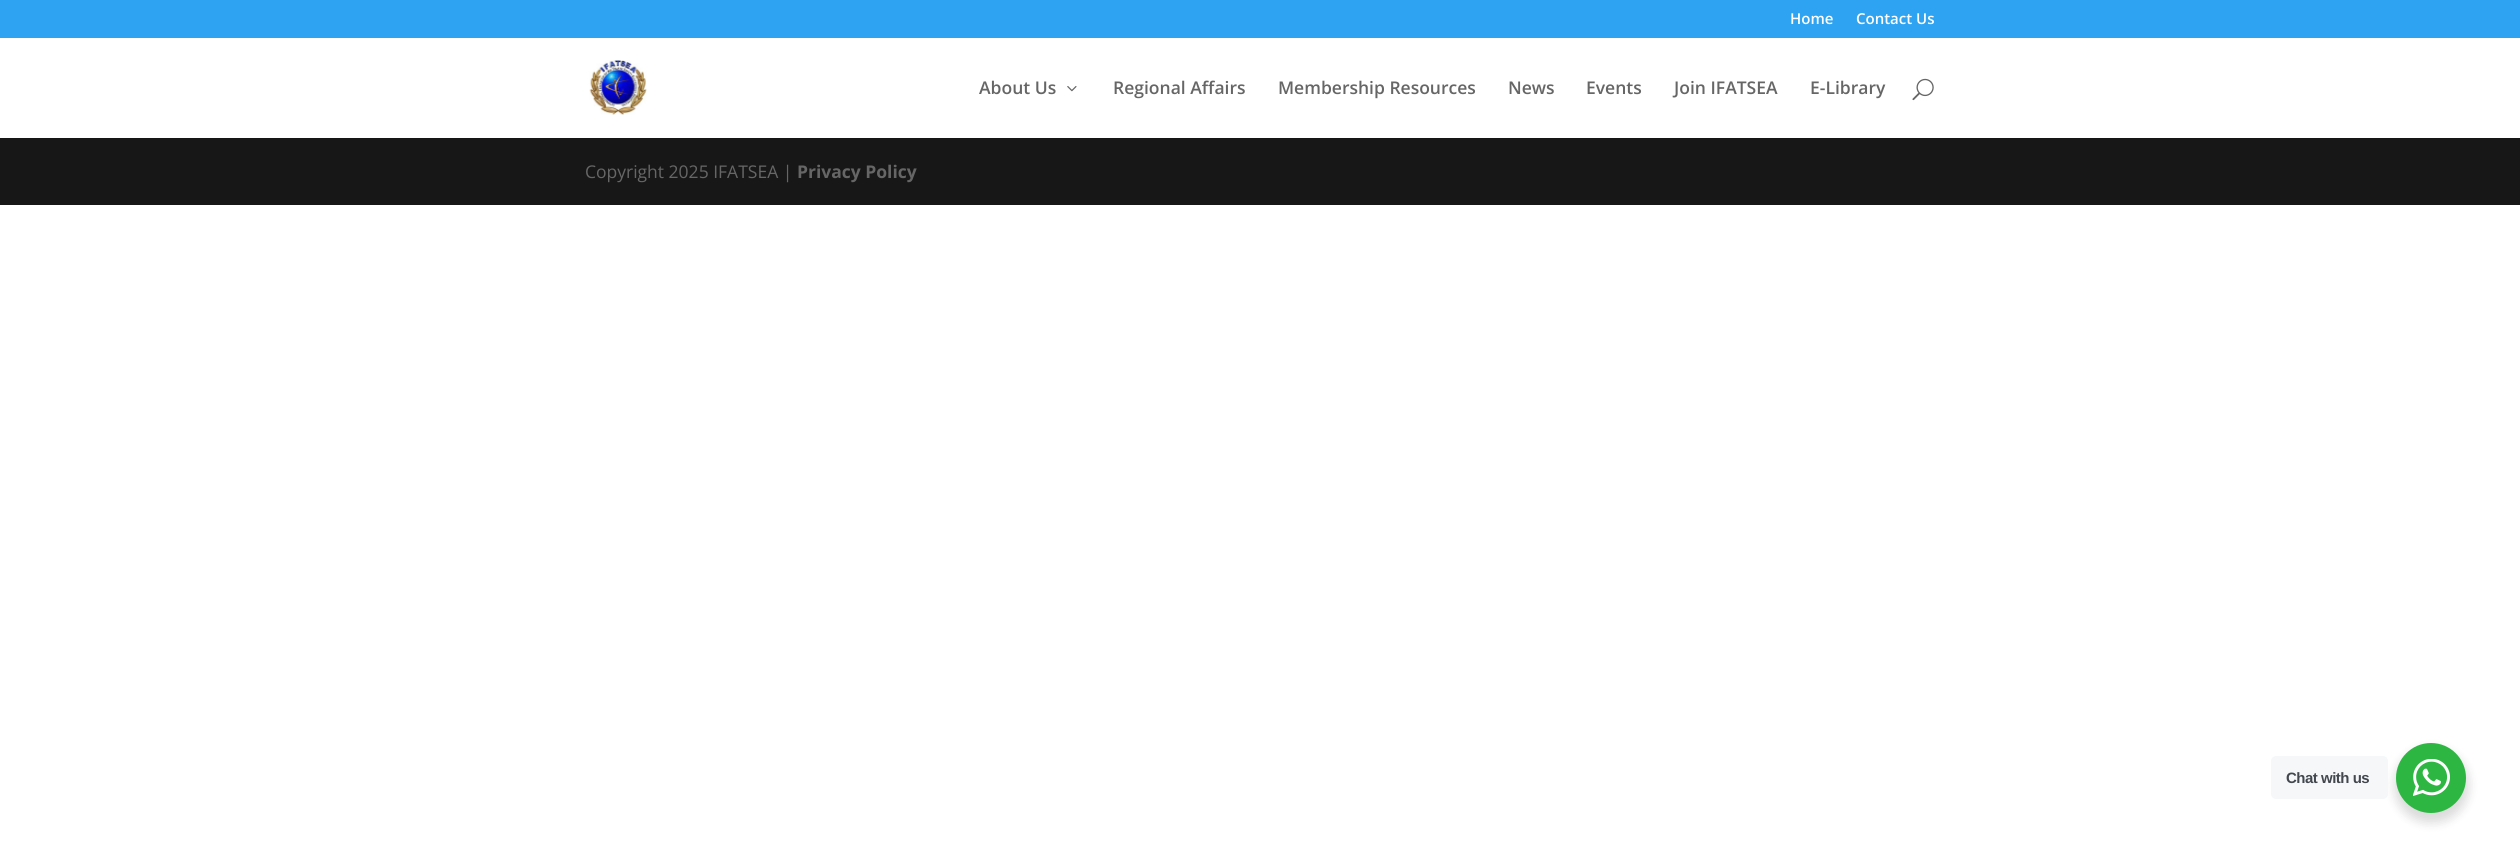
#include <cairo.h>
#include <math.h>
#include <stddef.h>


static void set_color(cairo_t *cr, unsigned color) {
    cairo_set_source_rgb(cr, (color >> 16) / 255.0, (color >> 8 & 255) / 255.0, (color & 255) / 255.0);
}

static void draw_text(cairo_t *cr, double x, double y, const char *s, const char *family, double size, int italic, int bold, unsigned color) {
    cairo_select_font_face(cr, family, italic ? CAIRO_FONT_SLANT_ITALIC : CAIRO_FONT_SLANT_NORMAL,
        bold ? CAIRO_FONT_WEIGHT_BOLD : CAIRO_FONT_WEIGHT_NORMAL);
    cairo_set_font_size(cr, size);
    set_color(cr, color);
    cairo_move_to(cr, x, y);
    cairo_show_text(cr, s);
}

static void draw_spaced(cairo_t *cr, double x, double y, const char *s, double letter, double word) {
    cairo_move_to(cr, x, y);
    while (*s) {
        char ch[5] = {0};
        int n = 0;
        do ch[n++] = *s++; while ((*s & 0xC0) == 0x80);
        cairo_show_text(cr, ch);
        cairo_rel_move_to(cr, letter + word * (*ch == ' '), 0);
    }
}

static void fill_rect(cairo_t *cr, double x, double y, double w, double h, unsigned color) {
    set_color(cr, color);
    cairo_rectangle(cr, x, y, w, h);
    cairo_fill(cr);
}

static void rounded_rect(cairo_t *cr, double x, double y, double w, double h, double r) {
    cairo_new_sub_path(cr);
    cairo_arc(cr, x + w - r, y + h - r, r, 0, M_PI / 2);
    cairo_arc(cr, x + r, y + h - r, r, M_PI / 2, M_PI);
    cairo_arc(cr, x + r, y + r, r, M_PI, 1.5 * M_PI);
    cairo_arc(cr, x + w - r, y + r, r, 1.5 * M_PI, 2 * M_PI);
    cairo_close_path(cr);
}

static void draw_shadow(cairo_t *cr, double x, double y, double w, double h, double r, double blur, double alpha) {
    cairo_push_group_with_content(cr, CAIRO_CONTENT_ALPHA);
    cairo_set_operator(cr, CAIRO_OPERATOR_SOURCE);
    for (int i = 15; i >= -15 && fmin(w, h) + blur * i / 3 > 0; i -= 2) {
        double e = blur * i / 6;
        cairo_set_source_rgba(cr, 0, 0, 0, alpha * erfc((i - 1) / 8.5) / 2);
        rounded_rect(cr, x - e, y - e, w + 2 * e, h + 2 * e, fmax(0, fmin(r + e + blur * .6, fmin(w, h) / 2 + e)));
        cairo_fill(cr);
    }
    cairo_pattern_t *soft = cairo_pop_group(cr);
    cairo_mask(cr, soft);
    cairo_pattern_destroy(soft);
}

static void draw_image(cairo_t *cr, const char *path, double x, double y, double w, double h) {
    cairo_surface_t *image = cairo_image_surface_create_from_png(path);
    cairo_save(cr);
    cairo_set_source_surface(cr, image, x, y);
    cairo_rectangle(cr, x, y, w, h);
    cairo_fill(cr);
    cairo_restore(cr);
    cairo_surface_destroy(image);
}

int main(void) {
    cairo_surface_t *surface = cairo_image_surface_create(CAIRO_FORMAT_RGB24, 2520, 849);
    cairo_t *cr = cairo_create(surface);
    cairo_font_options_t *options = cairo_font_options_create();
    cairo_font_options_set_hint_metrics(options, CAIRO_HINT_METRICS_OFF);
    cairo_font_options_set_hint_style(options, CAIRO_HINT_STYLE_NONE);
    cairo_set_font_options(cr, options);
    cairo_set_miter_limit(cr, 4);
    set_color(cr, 0xFFFFFF);
    cairo_paint(cr);
    fill_rect(cr, 0, 0, 2520, 38, 0x2EA3F2);
    draw_text(cr, 1790, 24, "Home", "Open Sans SemiBold", 15, 0, 0, 0xFFFFFF);
    draw_text(cr, 1856, 24, "Contact Us", "Open Sans SemiBold", 15, 0, 0, 0xFFFFFF);
    fill_rect(cr, 0, 138, 2520, 1, 0x151515);
    draw_image(cr, "assets/img1.png", 589, 60, 58, 55);
    draw_text(cr, 979, 94, "About Us", "Open Sans SemiBold", 17.5, 0, 0, 0x666666);
    draw_image(cr, "assets/img2.png", 1067, 86, 10, 6);
    draw_text(cr, 1113, 94, "Regional Affairs", "Open Sans SemiBold", 17.5, 0, 0, 0x666666);
    draw_text(cr, 1278, 94, "Membership Resources", "Open Sans SemiBold", 17.5, 0, 0, 0x666666);
    draw_text(cr, 1508, 94, "News", "Open Sans SemiBold", 17.5, 0, 0, 0x666666);
    draw_text(cr, 1586, 94, "Events", "Open Sans SemiBold", 17.5, 0, 0, 0x666666);
    draw_text(cr, 1674, 94, "Join IFATSEA", "Open Sans SemiBold", 17.5, 0, 0, 0x666666);
    draw_text(cr, 1810, 94, "E-Library", "Open Sans SemiBold", 17.5, 0, 0, 0x666666);
    draw_image(cr, "assets/img3.png", 1912, 78, 22, 23);
    fill_rect(cr, 0, 139, 2520, 66, 0x171717);
    draw_text(cr, 585, 178, "Copyright 2025 IFATSEA |", "Open Sans", 17.5, 0, 0, 0x666666);
    draw_text(cr, 797, 178, "Privacy Policy", "Open Sans", 17.5, 0, 1, 0x666666);
    set_color(cr, 0x000000);
    draw_shadow(cr, 2394, 748, 75, 75, 37.5, 5, 0.14);
    set_color(cr, 0xF5F7F9);
    rounded_rect(cr, 2271, 756, 117, 43, 5);
    cairo_fill(cr);
    cairo_select_font_face(cr, "Liberation Sans", CAIRO_FONT_SLANT_NORMAL, CAIRO_FONT_WEIGHT_BOLD);
    cairo_set_font_size(cr, 15);
    set_color(cr, 0x43474E);
    draw_spaced(cr, 2286, 783, "Chat with us", -0.5, 0);
    set_color(cr, 0x2DB742);
    cairo_new_path(cr);
    cairo_arc(cr, 2431, 778, 35, 0, 2 * M_PI);
    cairo_fill(cr);
    draw_image(cr, "assets/img4.png", 2413, 759, 37, 37);
    cairo_surface_write_to_png(surface, "output.png");
    cairo_font_options_destroy(options);
    cairo_destroy(cr);
    cairo_surface_destroy(surface);
    return 0;
}
